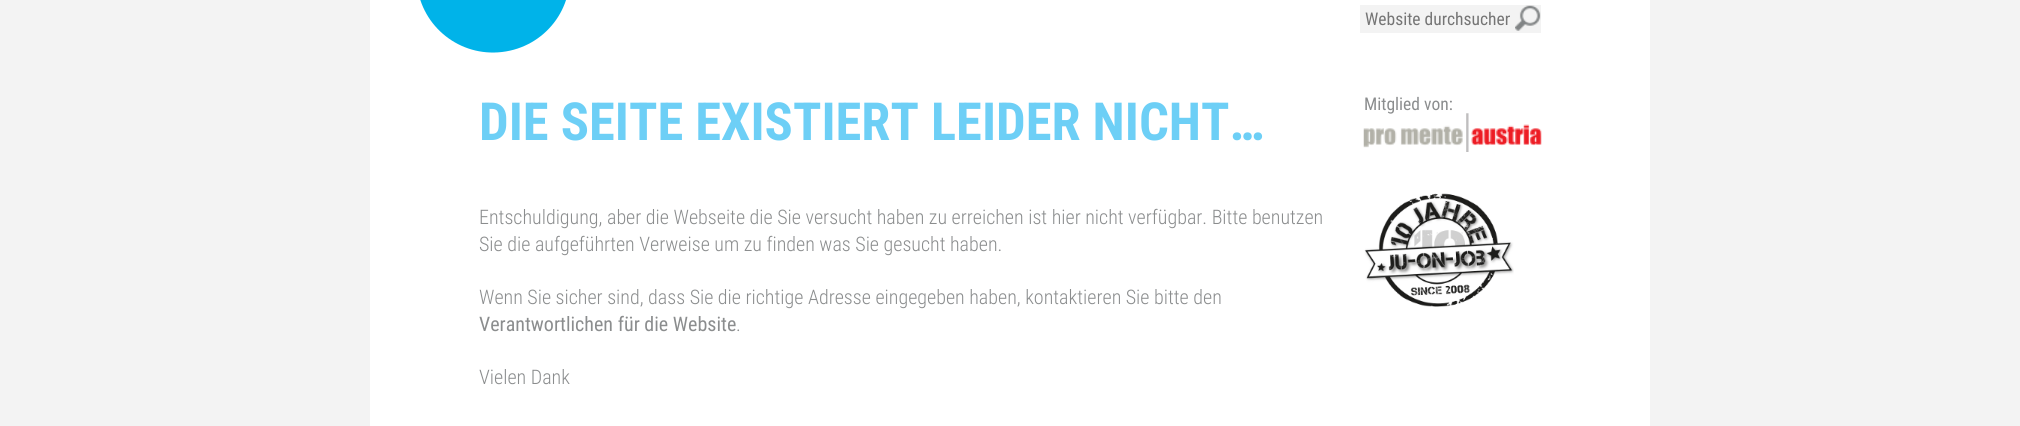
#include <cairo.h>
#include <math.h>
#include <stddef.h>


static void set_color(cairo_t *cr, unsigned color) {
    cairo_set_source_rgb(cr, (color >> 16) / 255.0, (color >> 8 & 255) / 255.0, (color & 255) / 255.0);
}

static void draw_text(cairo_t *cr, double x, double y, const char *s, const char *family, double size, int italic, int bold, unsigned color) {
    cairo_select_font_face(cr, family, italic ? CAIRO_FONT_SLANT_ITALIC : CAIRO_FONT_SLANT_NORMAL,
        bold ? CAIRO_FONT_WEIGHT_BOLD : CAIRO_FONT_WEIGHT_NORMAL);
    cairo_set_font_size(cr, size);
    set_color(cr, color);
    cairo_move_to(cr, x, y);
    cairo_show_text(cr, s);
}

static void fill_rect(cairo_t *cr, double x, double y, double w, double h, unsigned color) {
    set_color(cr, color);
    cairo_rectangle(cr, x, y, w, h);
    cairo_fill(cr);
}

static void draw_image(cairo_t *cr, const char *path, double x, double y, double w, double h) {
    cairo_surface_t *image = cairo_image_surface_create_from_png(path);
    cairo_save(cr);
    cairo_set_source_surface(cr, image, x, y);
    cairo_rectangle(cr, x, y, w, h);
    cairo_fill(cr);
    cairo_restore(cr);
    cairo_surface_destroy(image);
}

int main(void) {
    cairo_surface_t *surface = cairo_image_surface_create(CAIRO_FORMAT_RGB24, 2020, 426);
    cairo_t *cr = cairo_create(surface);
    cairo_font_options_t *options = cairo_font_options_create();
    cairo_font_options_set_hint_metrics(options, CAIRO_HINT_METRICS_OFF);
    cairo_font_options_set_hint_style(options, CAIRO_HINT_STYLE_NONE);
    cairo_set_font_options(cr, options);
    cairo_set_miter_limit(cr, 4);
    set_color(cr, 0xF3F3F3);
    cairo_paint(cr);
    fill_rect(cr, 370, 0, 1280, 426, 0xFFFFFF);
    set_color(cr, 0x00B3E9);
    cairo_new_path(cr);
    cairo_move_to(cr, 484, -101);
    cairo_curve_to(cr, 526, -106, 564, -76, 569, -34);
    cairo_curve_to(cr, 575, 8, 545, 47, 502, 52);
    cairo_curve_to(cr, 460, 57, 422, 27, 417, -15);
    cairo_curve_to(cr, 412, -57, 442, -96, 484, -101);
    cairo_close_path(cr);
    cairo_fill(cr);
    fill_rect(cr, 1360, 5, 181, 28, 0xF3F3F3);
    cairo_save(cr);
    cairo_rectangle(cr, 1365, 9, 145, 20);
    cairo_clip(cr);
    draw_text(cr, 1365, 25, "Website durchsuchen", "Roboto Condensed", 17.5, 0, 0, 0x757575);
    cairo_restore(cr);
    draw_image(cr, "assets/img1.png", 1515, 5, 26, 26);
    draw_text(cr, 479, 140, "DIE SEITE EXISTIERT LEIDER NICHT…", "Roboto Condensed", 52.5, 0, 1, 0x6DCFF6);
    draw_text(cr, 479, 224, "Entschuldigung, aber die Webseite die Sie versucht haben zu erreichen ist hier nicht verfügbar. Bitte benutzen", "Roboto Condensed Light", 20, 0, 0, 0x8B8D8E);
    draw_text(cr, 479, 251, "Sie die aufgeführten Verweise um zu finden was Sie gesucht haben.", "Roboto Condensed Light", 20, 0, 0, 0x8B8D8E);
    draw_text(cr, 479, 304, "Wenn Sie sicher sind, dass Sie die richtige Adresse eingegeben haben, kontaktieren Sie bitte den", "Roboto Condensed Light", 20, 0, 0, 0x8B8D8E);
    draw_text(cr, 479, 331, "Verantwortlichen für die Website", "Roboto Condensed", 20, 0, 0, 0x8B8D8E);
    draw_text(cr, 736, 331, ".", "Roboto Condensed Light", 20, 0, 0, 0x8B8D8E);
    draw_text(cr, 479, 384, "Vielen Dank", "Roboto Condensed Light", 20, 0, 0, 0x8B8D8E);
    draw_image(cr, "assets/img2.png", 1363, 113, 179, 39);
    draw_text(cr, 1364, 110, "Mitglied von:", "Roboto Condensed", 17.5, 0, 0, 0x8B8D8E);
    draw_image(cr, "assets/img3.png", 1364, 193, 150, 114);
    cairo_surface_write_to_png(surface, "output.png");
    cairo_font_options_destroy(options);
    cairo_destroy(cr);
    cairo_surface_destroy(surface);
    return 0;
}
